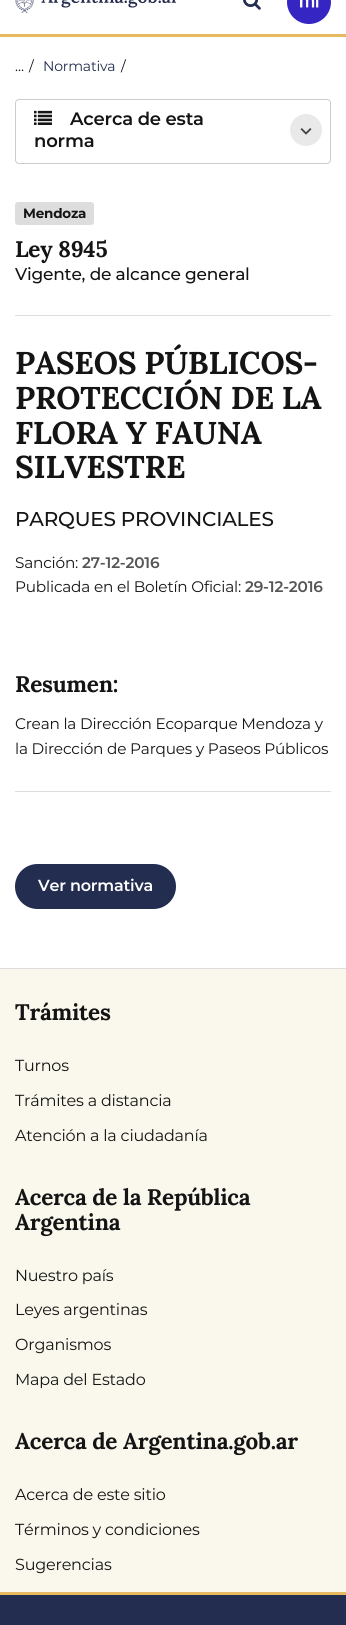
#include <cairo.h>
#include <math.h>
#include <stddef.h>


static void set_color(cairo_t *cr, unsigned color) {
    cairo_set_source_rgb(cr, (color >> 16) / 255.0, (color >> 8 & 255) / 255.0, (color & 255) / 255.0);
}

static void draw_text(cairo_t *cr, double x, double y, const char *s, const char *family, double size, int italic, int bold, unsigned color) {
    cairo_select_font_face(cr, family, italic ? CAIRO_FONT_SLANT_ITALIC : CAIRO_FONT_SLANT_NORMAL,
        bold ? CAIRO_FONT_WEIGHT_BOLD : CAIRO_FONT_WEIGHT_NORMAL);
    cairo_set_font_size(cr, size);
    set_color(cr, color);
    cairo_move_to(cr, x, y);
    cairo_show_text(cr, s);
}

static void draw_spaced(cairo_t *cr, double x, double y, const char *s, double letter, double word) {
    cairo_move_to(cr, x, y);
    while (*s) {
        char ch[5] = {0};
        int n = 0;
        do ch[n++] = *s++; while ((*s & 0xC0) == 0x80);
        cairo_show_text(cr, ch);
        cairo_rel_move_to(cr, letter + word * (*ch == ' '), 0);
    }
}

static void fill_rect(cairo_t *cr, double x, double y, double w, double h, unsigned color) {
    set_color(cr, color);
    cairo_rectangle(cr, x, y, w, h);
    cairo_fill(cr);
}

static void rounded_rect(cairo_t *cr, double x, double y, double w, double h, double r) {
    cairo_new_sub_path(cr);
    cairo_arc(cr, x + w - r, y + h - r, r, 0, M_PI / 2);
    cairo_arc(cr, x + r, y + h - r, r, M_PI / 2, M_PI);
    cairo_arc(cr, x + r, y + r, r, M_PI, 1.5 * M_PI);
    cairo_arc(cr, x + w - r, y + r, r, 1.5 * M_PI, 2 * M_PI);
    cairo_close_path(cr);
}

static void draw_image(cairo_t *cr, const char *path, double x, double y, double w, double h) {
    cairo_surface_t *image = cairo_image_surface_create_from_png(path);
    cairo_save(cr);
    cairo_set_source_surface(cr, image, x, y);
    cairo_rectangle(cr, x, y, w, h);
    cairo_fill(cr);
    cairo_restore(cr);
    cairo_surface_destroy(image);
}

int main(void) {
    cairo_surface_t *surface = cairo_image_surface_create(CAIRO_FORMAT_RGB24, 346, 1625);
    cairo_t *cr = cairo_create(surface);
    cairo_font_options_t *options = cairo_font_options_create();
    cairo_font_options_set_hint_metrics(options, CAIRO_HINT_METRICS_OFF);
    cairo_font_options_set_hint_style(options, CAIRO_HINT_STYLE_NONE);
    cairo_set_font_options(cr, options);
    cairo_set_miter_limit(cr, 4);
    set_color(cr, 0xFFFFFF);
    cairo_paint(cr);
    fill_rect(cr, 0, 34, 346, 3, 0xE7BA61);
    draw_image(cr, "assets/img1.png", 15, 0, 161, 13);
    draw_image(cr, "assets/img2.png", 243, 0, 18, 10);
    set_color(cr, 0x3526C3);
    cairo_arc(cr, 309, 2, 22, 0, 2 * M_PI);
    cairo_fill(cr);
    draw_image(cr, "assets/img3.png", 300, 0, 19, 8);
    draw_text(cr, 15, 71, "…", "Montserrat", 14, 0, 0, 0x141414);
    draw_text(cr, 29, 71, "/", "Montserrat", 14, 0, 0, 0x141414);
    set_color(cr, 0x232D4F);
    draw_spaced(cr, 43, 71, "Normativa", -0.2, 0);
    set_color(cr, 0x141414);
    draw_spaced(cr, 121, 71, "/", -0.2, 0);
    rounded_rect(cr, 15.5, 99.5, 315, 64, 3.5);
    set_color(cr, 0xCCCCCC);
    cairo_set_line_width(cr, 1);
    cairo_stroke(cr);
    draw_image(cr, "assets/img4.png", 34, 110, 18, 15);
    cairo_select_font_face(cr, "Montserrat SemiBold", CAIRO_FONT_SLANT_NORMAL, CAIRO_FONT_WEIGHT_NORMAL);
    cairo_set_font_size(cr, 18);
    set_color(cr, 0x141414);
    draw_spaced(cr, 70, 125, "Acerca de esta", -0.2, 0);
    draw_spaced(cr, 34, 147, "norma", -0.2, 0);
    set_color(cr, 0xE9E9E9);
    cairo_new_path(cr);
    cairo_arc(cr, 306, 130, 16, 0, 2 * M_PI);
    cairo_fill(cr);
    draw_image(cr, "assets/img5.png", 300, 128, 12, 7);
    set_color(cr, 0xDDDDDD);
    rounded_rect(cr, 15, 202, 79, 23, 3);
    cairo_fill(cr);
    cairo_select_font_face(cr, "Montserrat", CAIRO_FONT_SLANT_NORMAL, CAIRO_FONT_WEIGHT_BOLD);
    cairo_set_font_size(cr, 13.5);
    set_color(cr, 0x141414);
    draw_spaced(cr, 23, 218, "Mendoza", -0.2, 0);
    cairo_select_font_face(cr, "Lora", CAIRO_FONT_SLANT_NORMAL, CAIRO_FONT_WEIGHT_BOLD);
    cairo_set_font_size(cr, 22.5);
    draw_spaced(cr, 15, 257, "Ley 8945", -0.25, 0);
    cairo_select_font_face(cr, "Montserrat Medium", CAIRO_FONT_SLANT_NORMAL, CAIRO_FONT_WEIGHT_NORMAL);
    cairo_set_font_size(cr, 17);
    draw_spaced(cr, 15, 280, "Vigente, de alcance general", -0.2, 0);
    fill_rect(cr, 15, 315, 316, 1, 0xDDDDDD);
    cairo_select_font_face(cr, "Lora", CAIRO_FONT_SLANT_NORMAL, CAIRO_FONT_WEIGHT_BOLD);
    cairo_set_font_size(cr, 31.5);
    set_color(cr, 0x141414);
    draw_spaced(cr, 15, 374, "PASEOS PÚBLICOS-", -0.25, 0);
    draw_spaced(cr, 15, 409, "PROTECCIÓN DE LA", -0.25, 0);
    draw_spaced(cr, 15, 444, "FLORA Y FAUNA", -0.25, 0);
    draw_spaced(cr, 15, 478, "SILVESTRE", -0.25, 0);
    cairo_select_font_face(cr, "Montserrat Medium", CAIRO_FONT_SLANT_NORMAL, CAIRO_FONT_WEIGHT_NORMAL);
    cairo_set_font_size(cr, 20);
    draw_spaced(cr, 15, 526, "PARQUES PROVINCIALES", -0.2, 0);
    cairo_select_font_face(cr, "Montserrat", CAIRO_FONT_SLANT_NORMAL, CAIRO_FONT_WEIGHT_NORMAL);
    cairo_set_font_size(cr, 15.3);
    draw_spaced(cr, 15, 568, "Sanción:", -0.2, 0);
    cairo_select_font_face(cr, "Montserrat SemiBold", CAIRO_FONT_SLANT_NORMAL, CAIRO_FONT_WEIGHT_NORMAL);
    set_color(cr, 0x555555);
    draw_spaced(cr, 82, 568, "27-12-2016", -0.2, 0);
    cairo_select_font_face(cr, "Montserrat", CAIRO_FONT_SLANT_NORMAL, CAIRO_FONT_WEIGHT_NORMAL);
    set_color(cr, 0x141414);
    draw_spaced(cr, 15, 592, "Publicada en el Boletín Oficial:", -0.2, 0);
    cairo_select_font_face(cr, "Montserrat SemiBold", CAIRO_FONT_SLANT_NORMAL, CAIRO_FONT_WEIGHT_NORMAL);
    set_color(cr, 0x555555);
    draw_spaced(cr, 245, 592, "29-12-2016", -0.2, 0);
    cairo_select_font_face(cr, "Lora", CAIRO_FONT_SLANT_NORMAL, CAIRO_FONT_WEIGHT_BOLD);
    cairo_set_font_size(cr, 22.5);
    set_color(cr, 0x141414);
    draw_spaced(cr, 15, 692, "Resumen:", -0.25, 0);
    cairo_select_font_face(cr, "Montserrat", CAIRO_FONT_SLANT_NORMAL, CAIRO_FONT_WEIGHT_NORMAL);
    cairo_set_font_size(cr, 15.3);
    draw_spaced(cr, 15, 729, "Crean la Dirección Ecoparque Mendoza y", -0.2, 0);
    draw_spaced(cr, 15, 754, "la Dirección de Parques y Paseos Públicos", -0.2, 0);
    fill_rect(cr, 15, 791, 316, 1, 0xDDDDDD);
    set_color(cr, 0x232D4F);
    rounded_rect(cr, 15, 864, 161, 45, 22.5);
    cairo_fill(cr);
    cairo_select_font_face(cr, "Montserrat SemiBold", CAIRO_FONT_SLANT_NORMAL, CAIRO_FONT_WEIGHT_NORMAL);
    cairo_set_font_size(cr, 16);
    set_color(cr, 0xFFFFFF);
    draw_spaced(cr, 38, 891, "Ver normativa", -0.2, 0);
    fill_rect(cr, 0, 969, 346, 623, 0xFAF8ED);
    fill_rect(cr, 0, 968, 346, 1, 0xDDDDDD);
    cairo_select_font_face(cr, "Lora", CAIRO_FONT_SLANT_NORMAL, CAIRO_FONT_WEIGHT_BOLD);
    cairo_set_font_size(cr, 22.5);
    set_color(cr, 0x141414);
    draw_spaced(cr, 15, 1020, "Trámites", -0.25, 0);
    cairo_select_font_face(cr, "Montserrat", CAIRO_FONT_SLANT_NORMAL, CAIRO_FONT_WEIGHT_NORMAL);
    cairo_set_font_size(cr, 16);
    draw_spaced(cr, 15, 1071, "Turnos", -0.2, 0);
    draw_spaced(cr, 15, 1106, "Trámites a distancia", -0.2, 0);
    draw_spaced(cr, 15, 1141, "Atención a la ciudadanía", -0.2, 0);
    cairo_select_font_face(cr, "Lora", CAIRO_FONT_SLANT_NORMAL, CAIRO_FONT_WEIGHT_BOLD);
    cairo_set_font_size(cr, 22.5);
    draw_spaced(cr, 15, 1205, "Acerca de la República", -0.25, 0);
    draw_spaced(cr, 15, 1230, "Argentina", -0.25, 0);
    cairo_select_font_face(cr, "Montserrat", CAIRO_FONT_SLANT_NORMAL, CAIRO_FONT_WEIGHT_NORMAL);
    cairo_set_font_size(cr, 16);
    draw_spaced(cr, 15, 1281, "Nuestro país", -0.2, 0);
    draw_spaced(cr, 15, 1315, "Leyes argentinas", -0.2, 0);
    draw_spaced(cr, 15, 1350, "Organismos", -0.2, 0);
    draw_spaced(cr, 15, 1385, "Mapa del Estado", -0.2, 0);
    cairo_select_font_face(cr, "Lora", CAIRO_FONT_SLANT_NORMAL, CAIRO_FONT_WEIGHT_BOLD);
    cairo_set_font_size(cr, 22.5);
    draw_spaced(cr, 15, 1449, "Acerca de Argentina.gob.ar", -0.25, 0);
    cairo_select_font_face(cr, "Montserrat", CAIRO_FONT_SLANT_NORMAL, CAIRO_FONT_WEIGHT_NORMAL);
    cairo_set_font_size(cr, 16);
    draw_spaced(cr, 15, 1500, "Acerca de este sitio", -0.2, 0);
    draw_spaced(cr, 15, 1535, "Términos y condiciones", -0.2, 0);
    draw_spaced(cr, 15, 1570, "Sugerencias", -0.2, 0);
    fill_rect(cr, 0, 1592, 346, 3, 0xE7BA61);
    fill_rect(cr, 0, 1595, 346, 30, 0x232D4F);
    cairo_surface_write_to_png(surface, "output.png");
    cairo_font_options_destroy(options);
    cairo_destroy(cr);
    cairo_surface_destroy(surface);
    return 0;
}
